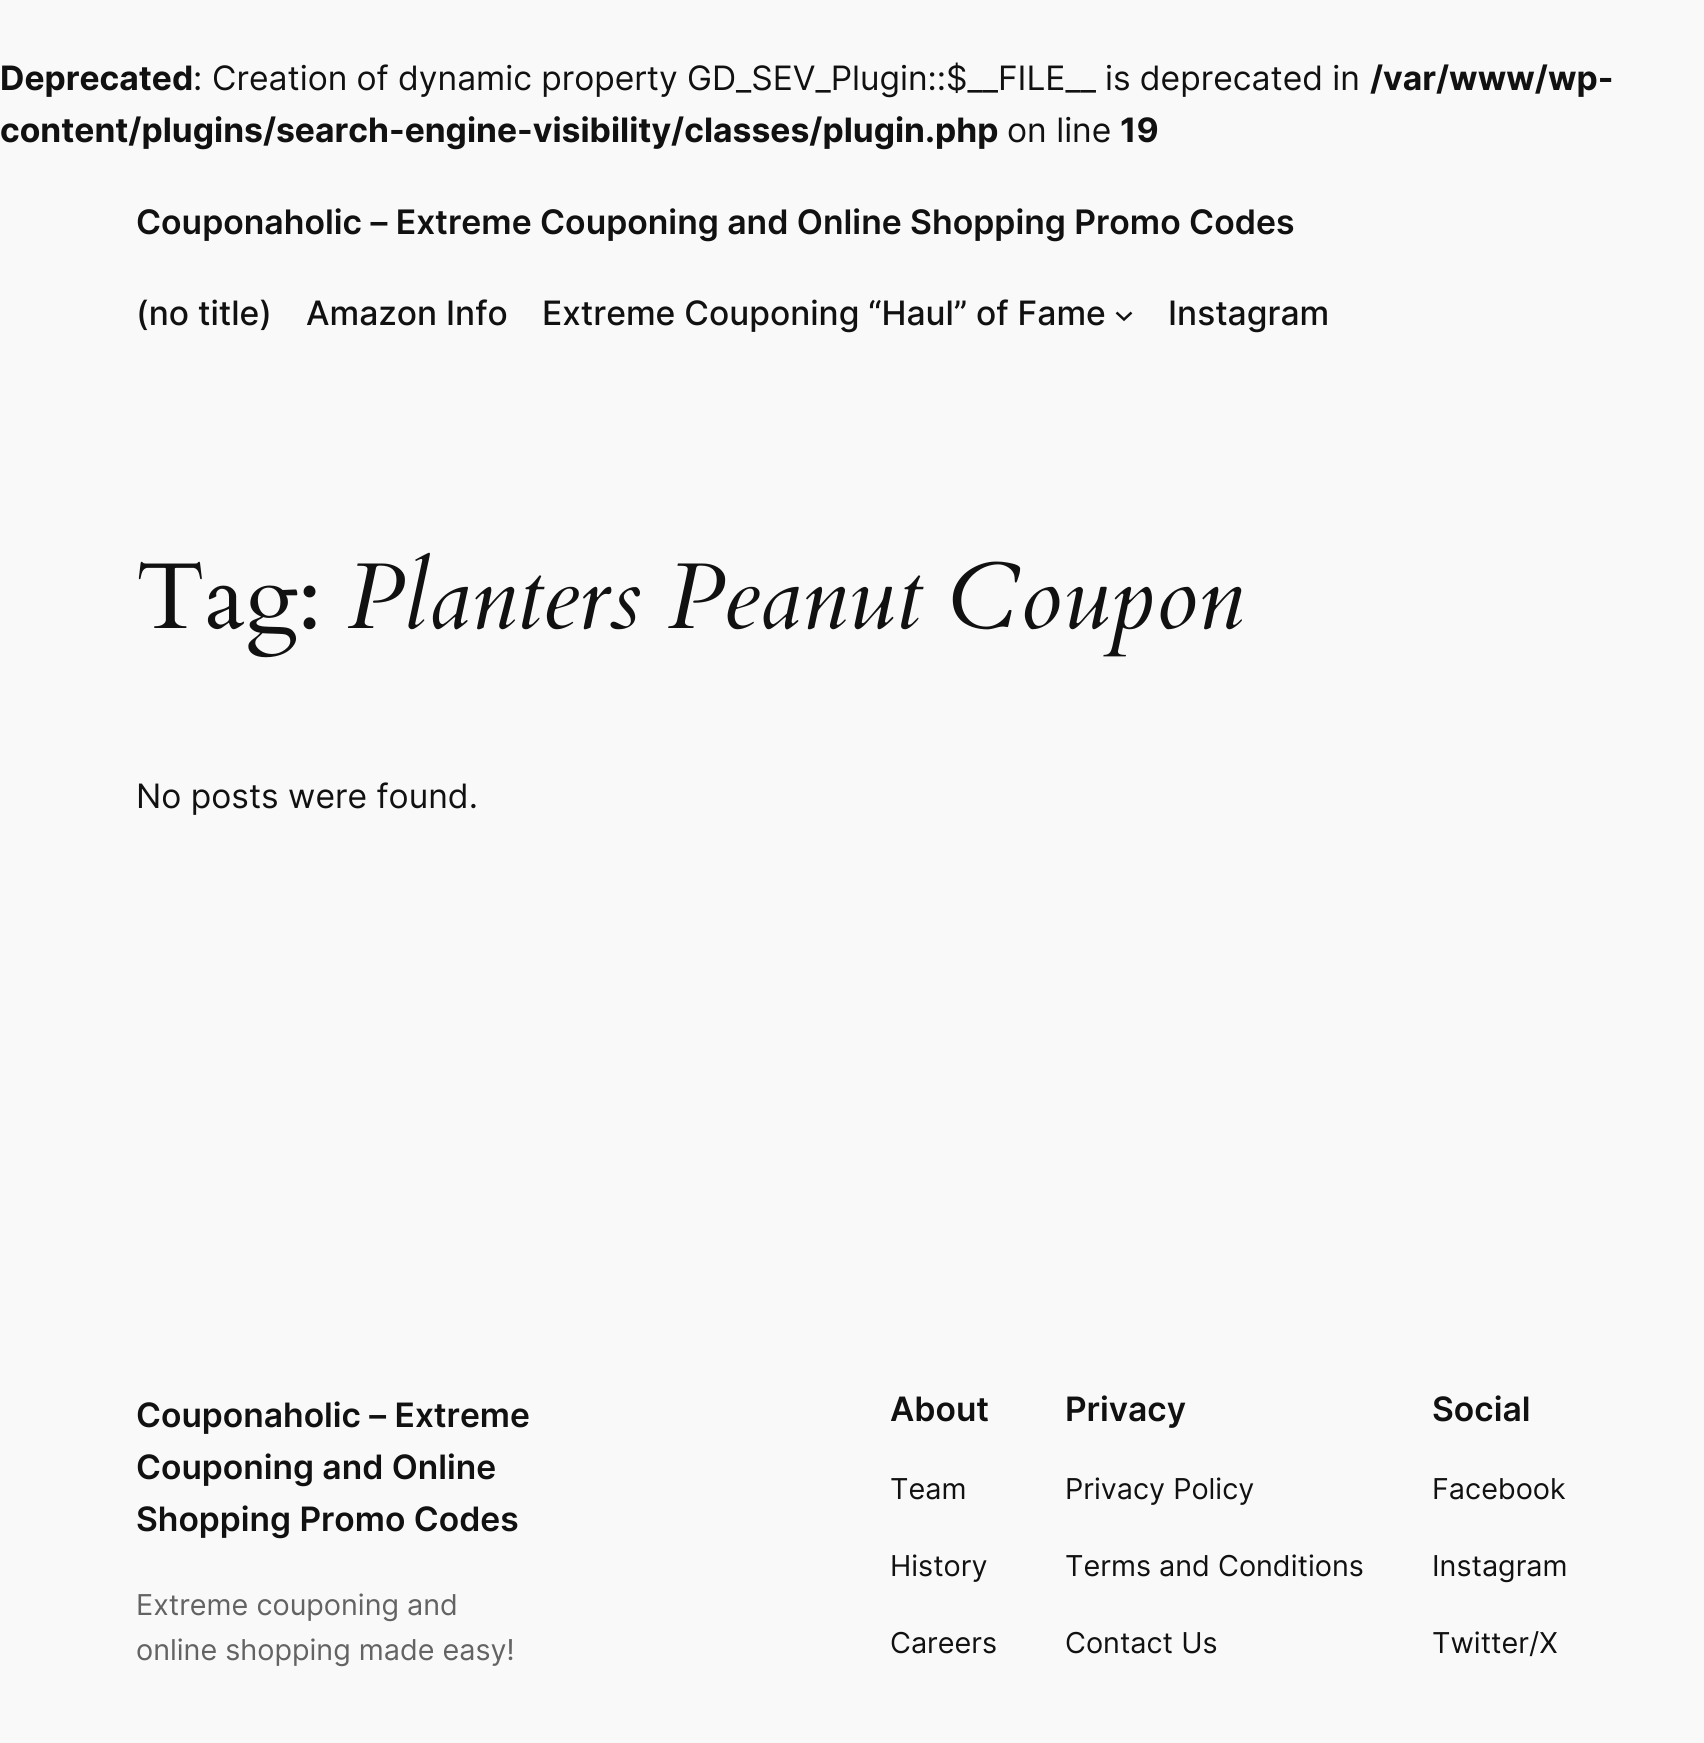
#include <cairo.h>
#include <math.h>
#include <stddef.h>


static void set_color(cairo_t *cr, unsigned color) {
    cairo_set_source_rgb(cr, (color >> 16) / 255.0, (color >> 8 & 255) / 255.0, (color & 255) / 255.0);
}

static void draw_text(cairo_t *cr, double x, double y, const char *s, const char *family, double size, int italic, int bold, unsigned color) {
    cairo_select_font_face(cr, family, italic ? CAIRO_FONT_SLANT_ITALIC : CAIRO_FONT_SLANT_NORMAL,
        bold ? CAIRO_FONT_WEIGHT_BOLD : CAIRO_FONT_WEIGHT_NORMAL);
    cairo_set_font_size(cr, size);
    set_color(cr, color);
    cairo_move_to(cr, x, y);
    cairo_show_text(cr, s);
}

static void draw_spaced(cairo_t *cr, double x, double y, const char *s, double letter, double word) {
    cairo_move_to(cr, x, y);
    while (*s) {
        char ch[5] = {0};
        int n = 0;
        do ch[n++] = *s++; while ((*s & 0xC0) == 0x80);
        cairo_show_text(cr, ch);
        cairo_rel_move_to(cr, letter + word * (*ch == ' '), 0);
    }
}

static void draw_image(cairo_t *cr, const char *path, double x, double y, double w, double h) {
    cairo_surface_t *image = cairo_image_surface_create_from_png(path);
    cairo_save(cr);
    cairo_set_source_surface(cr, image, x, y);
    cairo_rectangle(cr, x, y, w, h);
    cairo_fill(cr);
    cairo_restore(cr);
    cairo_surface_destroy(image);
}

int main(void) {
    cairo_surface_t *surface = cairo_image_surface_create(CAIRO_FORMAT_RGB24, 1704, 1743);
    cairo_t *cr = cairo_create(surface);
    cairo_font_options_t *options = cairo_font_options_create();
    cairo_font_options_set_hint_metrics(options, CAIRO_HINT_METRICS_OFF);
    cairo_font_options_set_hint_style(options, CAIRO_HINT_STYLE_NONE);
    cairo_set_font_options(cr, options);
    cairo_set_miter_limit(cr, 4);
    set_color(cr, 0xF9F9F9);
    cairo_paint(cr);
    draw_text(cr, 0, 90, "Deprecated", "Inter", 33.6, 0, 1, 0x111111);
    draw_text(cr, 193, 90, ":", "Inter", 33.6, 0, 0, 0x111111);
    draw_spaced(cr, 212, 90, "Creation of dynamic property GD_SEV_Plugin::$__FILE__ is deprecated in", 0, -0.25);
    draw_text(cr, 1370, 90, "/var/www/wp-", "Inter", 33.6, 0, 1, 0x111111);
    draw_text(cr, 0, 142, "content/plugins/search-engine-visibility/classes/plugin.php", "Inter", 33.6, 0, 1, 0x111111);
    draw_text(cr, 1007, 142, "on line", "Inter", 33.6, 0, 0, 0x111111);
    draw_text(cr, 1120, 142, "19", "Inter", 33.6, 0, 1, 0x111111);
    draw_text(cr, 136, 234, "Couponaholic – Extreme Couponing and Online Shopping Promo Codes", "Inter SemiBold", 33.75, 0, 0, 0x111111);
    draw_text(cr, 136, 325, "(no title)", "Inter Medium", 33.6, 0, 0, 0x111111);
    draw_text(cr, 306, 325, "Amazon Info", "Inter Medium", 33.6, 0, 0, 0x111111);
    draw_text(cr, 542, 325, "Extreme Couponing “Haul” of Fame", "Inter Medium", 33.6, 0, 0, 0x111111);
    cairo_new_path(cr);
    cairo_move_to(cr, 1116.5, 312.5);
    cairo_line_to(cr, 1124, 319.5);
    cairo_line_to(cr, 1131.5, 312.5);
    cairo_set_line_width(cr, 2.5);
    cairo_stroke(cr);
    draw_text(cr, 1168, 325, "Instagram", "Inter Medium", 33.6, 0, 0, 0x111111);
    draw_image(cr, "assets/img1.png", 138, 561, 178, 97);
    draw_text(cr, 347, 628, "Planters Peanut Coupon", "Cardo", 93.75, 1, 0, 0x111111);
    draw_text(cr, 136, 808, "No posts were found.", "Inter", 33.6, 0, 0, 0x111111);
    draw_text(cr, 136, 1427, "Couponaholic – Extreme", "Inter SemiBold", 33.6, 0, 0, 0x111111);
    draw_text(cr, 136, 1479, "Couponing and Online", "Inter SemiBold", 33.6, 0, 0, 0x111111);
    draw_text(cr, 136, 1531, "Shopping Promo Codes", "Inter SemiBold", 33.6, 0, 0, 0x111111);
    draw_text(cr, 136, 1615, "Extreme couponing and", "Inter", 28.75, 0, 0, 0x636363);
    draw_text(cr, 136, 1660, "online shopping made easy!", "Inter", 28.75, 0, 0, 0x636363);
    draw_text(cr, 890, 1421, "About", "Inter SemiBold", 33.6, 0, 0, 0x111111);
    draw_text(cr, 890, 1499, "Team", "Inter", 28.75, 0, 0, 0x111111);
    draw_text(cr, 890, 1576, "History", "Inter", 28.75, 0, 0, 0x111111);
    draw_text(cr, 890, 1653, "Careers", "Inter", 28.75, 0, 0, 0x111111);
    draw_text(cr, 1065, 1421, "Privacy", "Inter SemiBold", 33.6, 0, 0, 0x111111);
    draw_text(cr, 1065, 1499, "Privacy Policy", "Inter", 28.75, 0, 0, 0x111111);
    draw_text(cr, 1065, 1576, "Terms and Conditions", "Inter", 28.75, 0, 0, 0x111111);
    draw_text(cr, 1065, 1653, "Contact Us", "Inter", 28.75, 0, 0, 0x111111);
    draw_text(cr, 1432, 1421, "Social", "Inter SemiBold", 33.6, 0, 0, 0x111111);
    draw_text(cr, 1432, 1499, "Facebook", "Inter", 28.75, 0, 0, 0x111111);
    draw_text(cr, 1432, 1576, "Instagram", "Inter", 28.75, 0, 0, 0x111111);
    draw_text(cr, 1432, 1653, "Twitter/X", "Inter", 28.75, 0, 0, 0x111111);
    cairo_surface_write_to_png(surface, "output.png");
    cairo_font_options_destroy(options);
    cairo_destroy(cr);
    cairo_surface_destroy(surface);
    return 0;
}
